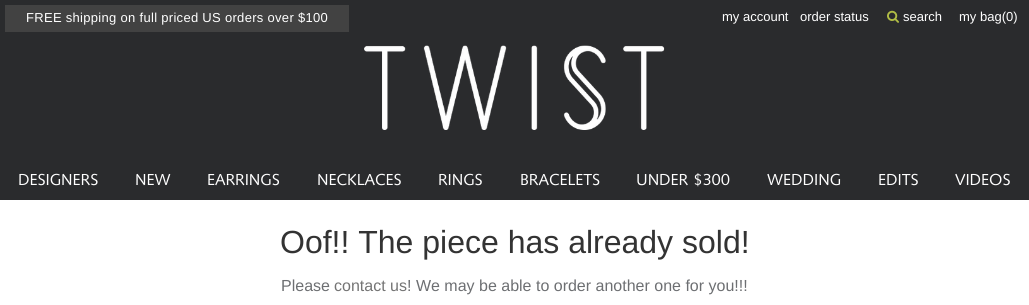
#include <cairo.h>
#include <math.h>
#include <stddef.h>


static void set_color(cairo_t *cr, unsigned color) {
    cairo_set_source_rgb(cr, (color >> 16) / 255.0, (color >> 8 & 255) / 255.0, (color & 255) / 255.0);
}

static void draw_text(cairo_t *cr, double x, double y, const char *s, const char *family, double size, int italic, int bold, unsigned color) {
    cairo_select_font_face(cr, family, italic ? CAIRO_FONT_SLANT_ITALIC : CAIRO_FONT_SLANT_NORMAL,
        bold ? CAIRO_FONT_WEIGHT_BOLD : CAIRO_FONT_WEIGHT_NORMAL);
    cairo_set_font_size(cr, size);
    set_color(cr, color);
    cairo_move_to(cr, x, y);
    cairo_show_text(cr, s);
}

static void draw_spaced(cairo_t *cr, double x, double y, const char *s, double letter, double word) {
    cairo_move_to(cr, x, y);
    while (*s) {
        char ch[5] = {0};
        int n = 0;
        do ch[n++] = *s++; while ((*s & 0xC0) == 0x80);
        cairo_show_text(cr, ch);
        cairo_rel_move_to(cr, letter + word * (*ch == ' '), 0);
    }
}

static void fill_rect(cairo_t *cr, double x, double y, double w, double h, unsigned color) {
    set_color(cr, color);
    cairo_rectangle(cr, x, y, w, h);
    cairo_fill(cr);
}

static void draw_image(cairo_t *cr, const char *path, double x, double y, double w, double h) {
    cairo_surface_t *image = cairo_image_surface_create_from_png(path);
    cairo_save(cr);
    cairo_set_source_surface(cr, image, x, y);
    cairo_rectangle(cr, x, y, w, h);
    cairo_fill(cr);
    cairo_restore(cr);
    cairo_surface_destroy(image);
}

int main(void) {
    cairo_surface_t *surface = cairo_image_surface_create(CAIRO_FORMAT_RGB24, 1029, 305);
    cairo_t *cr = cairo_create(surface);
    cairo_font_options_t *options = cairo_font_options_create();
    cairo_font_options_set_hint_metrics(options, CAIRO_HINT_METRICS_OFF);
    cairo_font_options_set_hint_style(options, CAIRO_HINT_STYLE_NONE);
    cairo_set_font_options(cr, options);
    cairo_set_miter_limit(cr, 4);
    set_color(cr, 0xFFFFFF);
    cairo_paint(cr);
    fill_rect(cr, 0, 0, 1029, 200, 0x2A2B2D);
    fill_rect(cr, 5, 5, 344, 27, 0x424242);
    cairo_select_font_face(cr, "Liberation Sans", CAIRO_FONT_SLANT_NORMAL, CAIRO_FONT_WEIGHT_NORMAL);
    cairo_set_font_size(cr, 13);
    set_color(cr, 0xFFFFFF);
    draw_spaced(cr, 26, 22, "FREE shipping on full priced US orders over $100", 0.3, 0);
    draw_text(cr, 722, 21, "my account", "Liberation Sans", 13, 0, 0, 0xFFFFFF);
    draw_text(cr, 800, 21, "order status", "Liberation Sans", 13, 0, 0, 0xFFFFFF);
    draw_image(cr, "assets/img1.png", 887, 10, 12, 13);
    draw_text(cr, 903, 21, "search", "Liberation Sans", 13, 0, 0, 0xFFFFFF);
    draw_text(cr, 959, 21, "my bag(0)", "Liberation Sans", 13, 0, 0, 0xFFFFFF);
    draw_image(cr, "assets/img2.png", 364, 45, 301, 85);
    draw_text(cr, 18, 185, "DESIGNERS", "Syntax", 16.5, 0, 0, 0xFFFFFF);
    draw_text(cr, 135, 185, "NEW", "Syntax", 16.5, 0, 0, 0xFFFFFF);
    draw_text(cr, 207, 185, "EARRINGS", "Syntax", 16.5, 0, 0, 0xFFFFFF);
    draw_text(cr, 317, 185, "NECKLACES", "Syntax", 16.5, 0, 0, 0xFFFFFF);
    draw_text(cr, 438, 185, "RINGS", "Syntax", 16.5, 0, 0, 0xFFFFFF);
    draw_text(cr, 520, 185, "BRACELETS", "Syntax", 16.5, 0, 0, 0xFFFFFF);
    draw_text(cr, 636, 185, "UNDER $300", "Syntax", 16.5, 0, 0, 0xFFFFFF);
    draw_text(cr, 767, 185, "WEDDING", "Syntax", 16.5, 0, 0, 0xFFFFFF);
    draw_text(cr, 878, 185, "EDITS", "Syntax", 16.5, 0, 0, 0xFFFFFF);
    draw_text(cr, 955, 185, "VIDEOS", "Syntax", 16.5, 0, 0, 0xFFFFFF);
    draw_text(cr, 280, 253, "Oof!! The piece has already sold!", "Liberation Sans", 32, 0, 0, 0x333333);
    draw_text(cr, 281, 291, "Please", "Liberation Sans", 16, 0, 0, 0x6D6F72);
    draw_text(cr, 334, 291, "contact us", "Liberation Sans", 16, 0, 0, 0x747474);
    draw_text(cr, 407, 291, "! We may be able to order another one for you!!!", "Liberation Sans", 16, 0, 0, 0x6D6F72);
    cairo_surface_write_to_png(surface, "output.png");
    cairo_font_options_destroy(options);
    cairo_destroy(cr);
    cairo_surface_destroy(surface);
    return 0;
}
